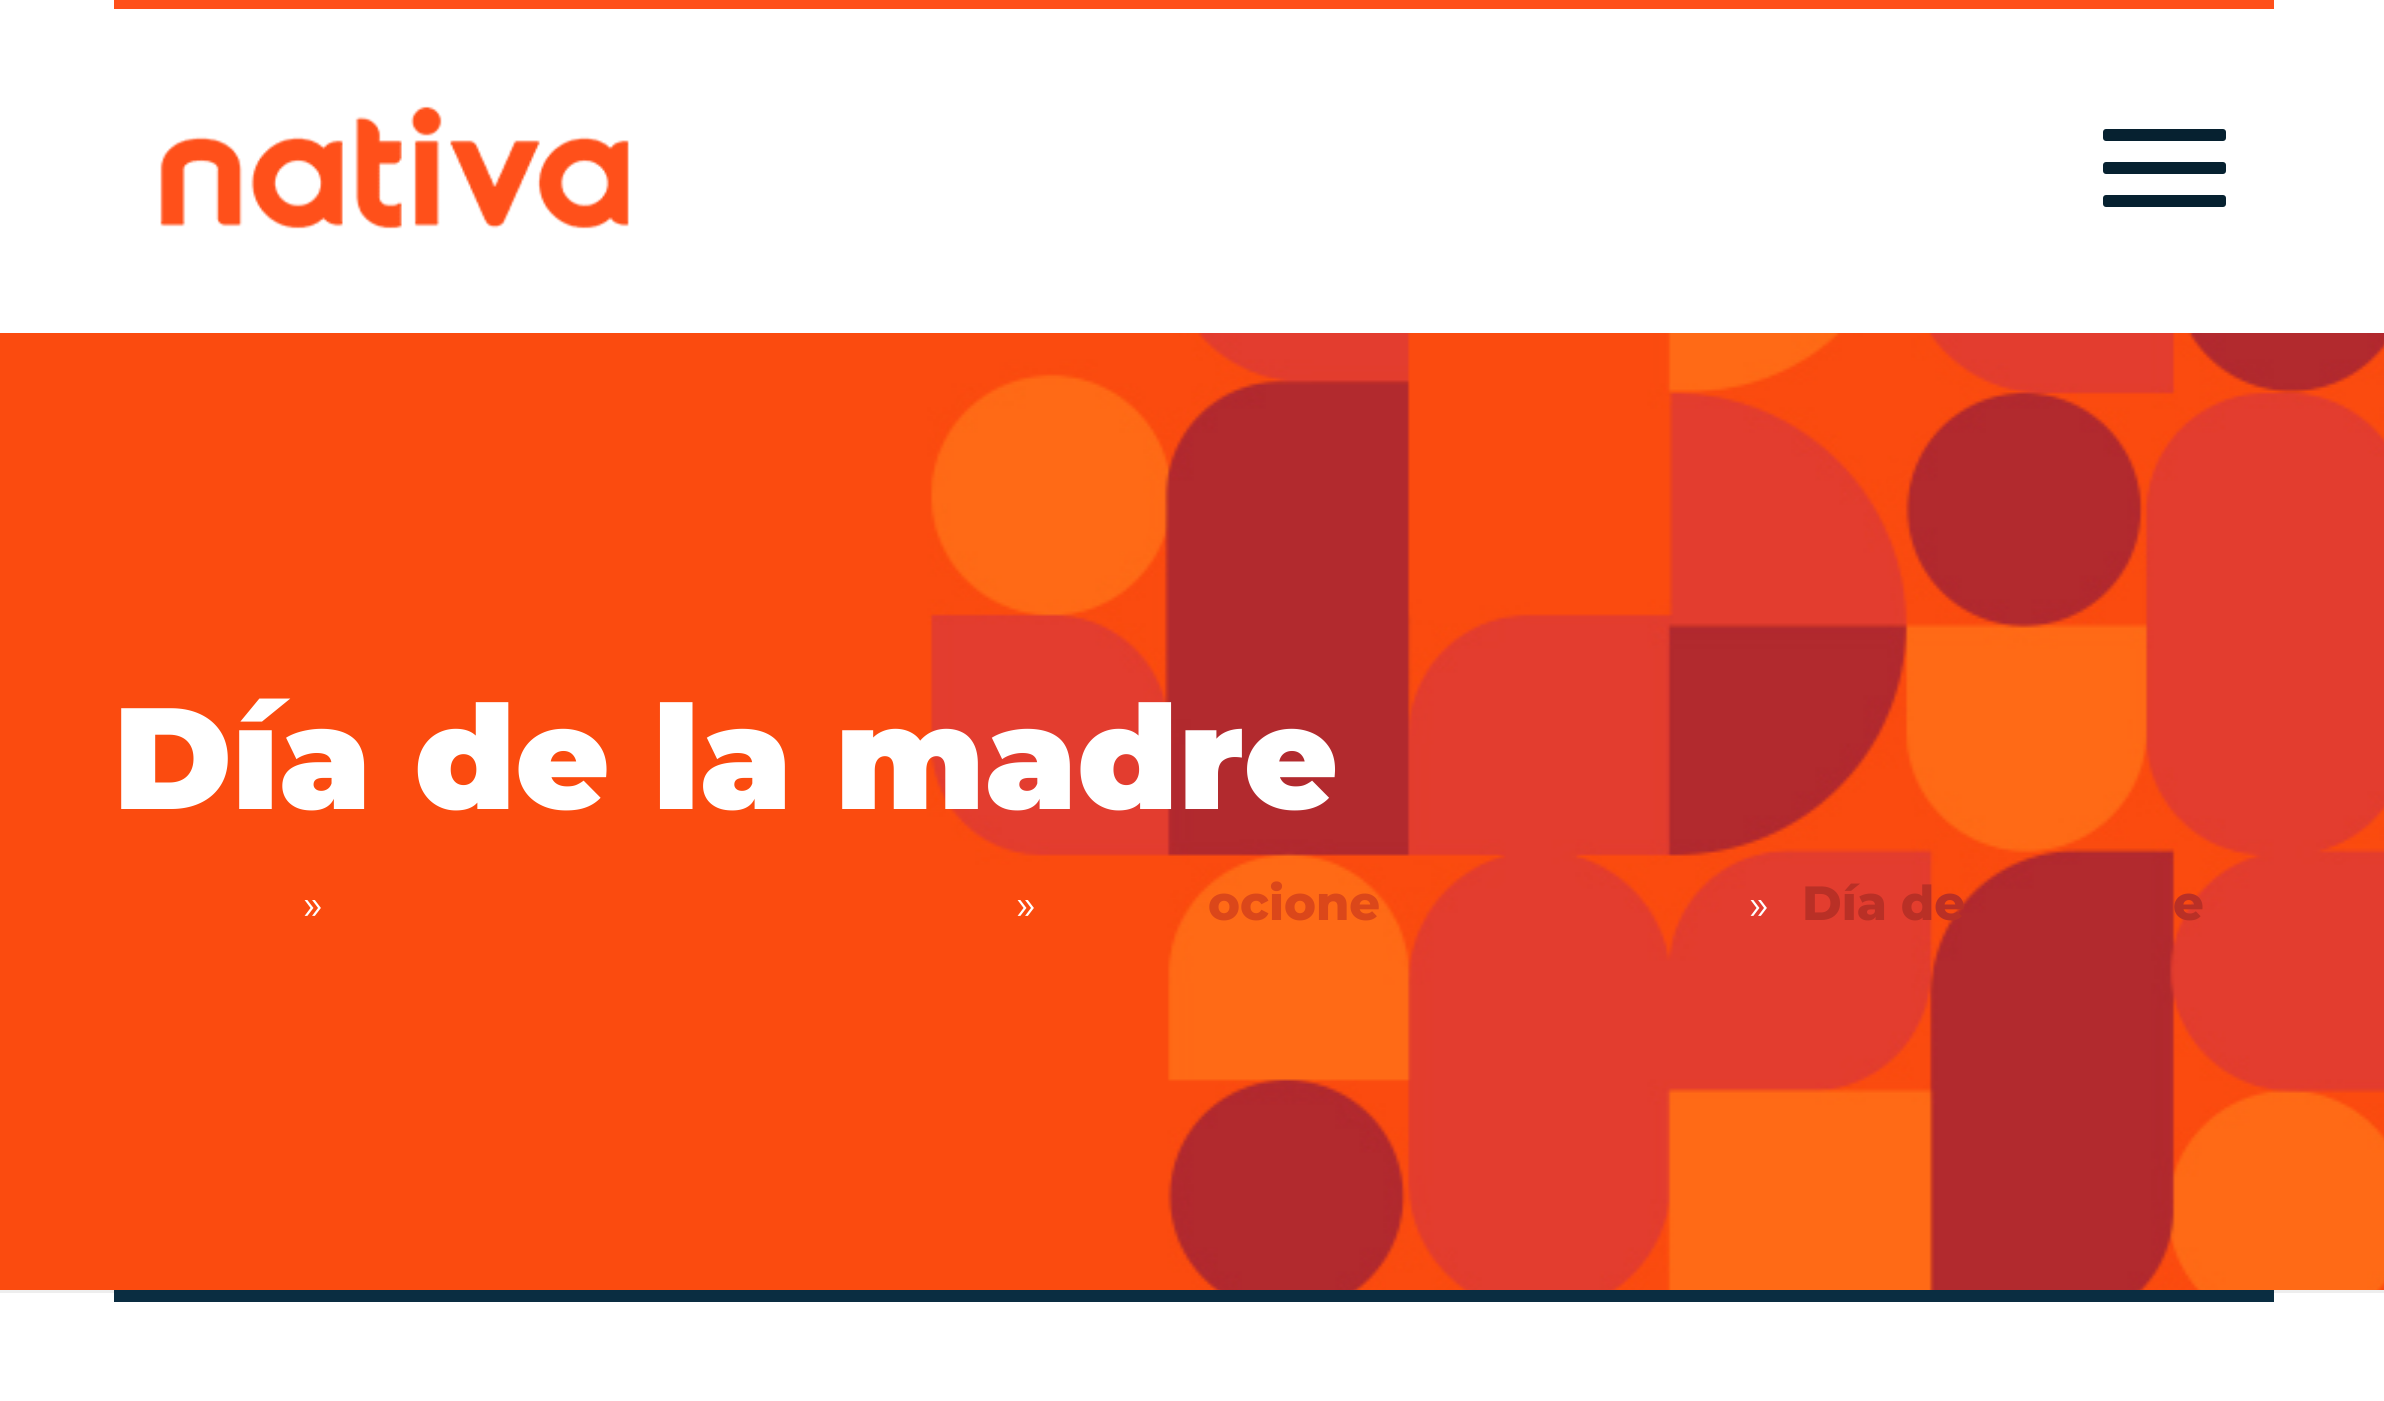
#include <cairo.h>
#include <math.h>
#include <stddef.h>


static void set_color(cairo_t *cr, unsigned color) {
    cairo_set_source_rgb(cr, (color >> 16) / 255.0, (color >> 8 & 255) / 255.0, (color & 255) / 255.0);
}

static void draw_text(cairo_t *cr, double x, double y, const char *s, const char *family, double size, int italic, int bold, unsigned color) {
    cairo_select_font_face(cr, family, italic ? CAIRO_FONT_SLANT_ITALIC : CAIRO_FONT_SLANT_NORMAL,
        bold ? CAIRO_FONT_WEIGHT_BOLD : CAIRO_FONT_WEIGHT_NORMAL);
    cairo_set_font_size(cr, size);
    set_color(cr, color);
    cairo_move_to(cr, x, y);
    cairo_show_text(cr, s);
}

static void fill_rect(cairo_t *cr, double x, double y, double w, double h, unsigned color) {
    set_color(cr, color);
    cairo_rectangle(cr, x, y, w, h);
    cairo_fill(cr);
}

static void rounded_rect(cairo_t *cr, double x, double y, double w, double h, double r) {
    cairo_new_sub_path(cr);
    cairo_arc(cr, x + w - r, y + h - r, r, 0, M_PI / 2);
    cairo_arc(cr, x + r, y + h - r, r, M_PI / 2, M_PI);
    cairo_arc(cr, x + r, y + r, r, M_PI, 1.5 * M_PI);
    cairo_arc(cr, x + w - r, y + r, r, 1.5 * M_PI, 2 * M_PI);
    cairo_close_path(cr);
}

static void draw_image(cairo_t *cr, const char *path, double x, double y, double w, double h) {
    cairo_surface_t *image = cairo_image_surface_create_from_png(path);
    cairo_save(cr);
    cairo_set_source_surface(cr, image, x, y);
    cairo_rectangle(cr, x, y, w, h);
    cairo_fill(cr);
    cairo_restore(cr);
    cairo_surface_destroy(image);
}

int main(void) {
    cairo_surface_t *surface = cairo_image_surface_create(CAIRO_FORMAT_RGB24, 2384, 1401);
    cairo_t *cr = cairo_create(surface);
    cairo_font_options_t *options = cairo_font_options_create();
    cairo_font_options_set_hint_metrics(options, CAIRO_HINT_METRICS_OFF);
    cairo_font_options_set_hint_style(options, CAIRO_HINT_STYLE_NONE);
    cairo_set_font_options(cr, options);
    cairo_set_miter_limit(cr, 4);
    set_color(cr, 0xFFFFFF);
    cairo_paint(cr);
    fill_rect(cr, 114, 0, 2160, 9, 0xFF501A);
    draw_image(cr, "assets/img1.png", 160, 106, 469, 123);
    set_color(cr, 0x062130);
    rounded_rect(cr, 2103, 129, 123, 12, 3);
    cairo_fill(cr);
    rounded_rect(cr, 2103, 162, 123, 12, 3);
    cairo_fill(cr);
    rounded_rect(cr, 2103, 195, 123, 12, 3);
    cairo_fill(cr);
    draw_image(cr, "assets/img2.png", 0, 333, 2384, 957);
    fill_rect(cr, 0, 1290, 2384, 3, 0xEEEEEE);
    draw_text(cr, 113, 809, "Día de la madre", "Montserrat Black", 144, 0, 0, 0xFFFFFF);
    draw_text(cr, 303, 919, "»", "Montserrat", 42, 0, 0, 0xFFFFFF);
    draw_text(cr, 1016, 919, "»", "Montserrat", 42, 0, 0, 0xFFFFFF);
    draw_text(cr, 1208, 920, "ocione", "Montserrat Thin", 48, 0, 0, 0xDB471A);
    draw_text(cr, 1749, 919, "»", "Montserrat", 42, 0, 0, 0xFFFFFF);
    draw_text(cr, 1802, 920, "Día de", "Montserrat Thin", 48, 0, 0, 0xB93026);
    draw_text(cr, 2173, 920, "e", "Montserrat Thin", 48, 0, 0, 0xB93026);
    fill_rect(cr, 114, 1290, 2160, 12, 0x0A2D41);
    cairo_surface_write_to_png(surface, "output.png");
    cairo_font_options_destroy(options);
    cairo_destroy(cr);
    cairo_surface_destroy(surface);
    return 0;
}
